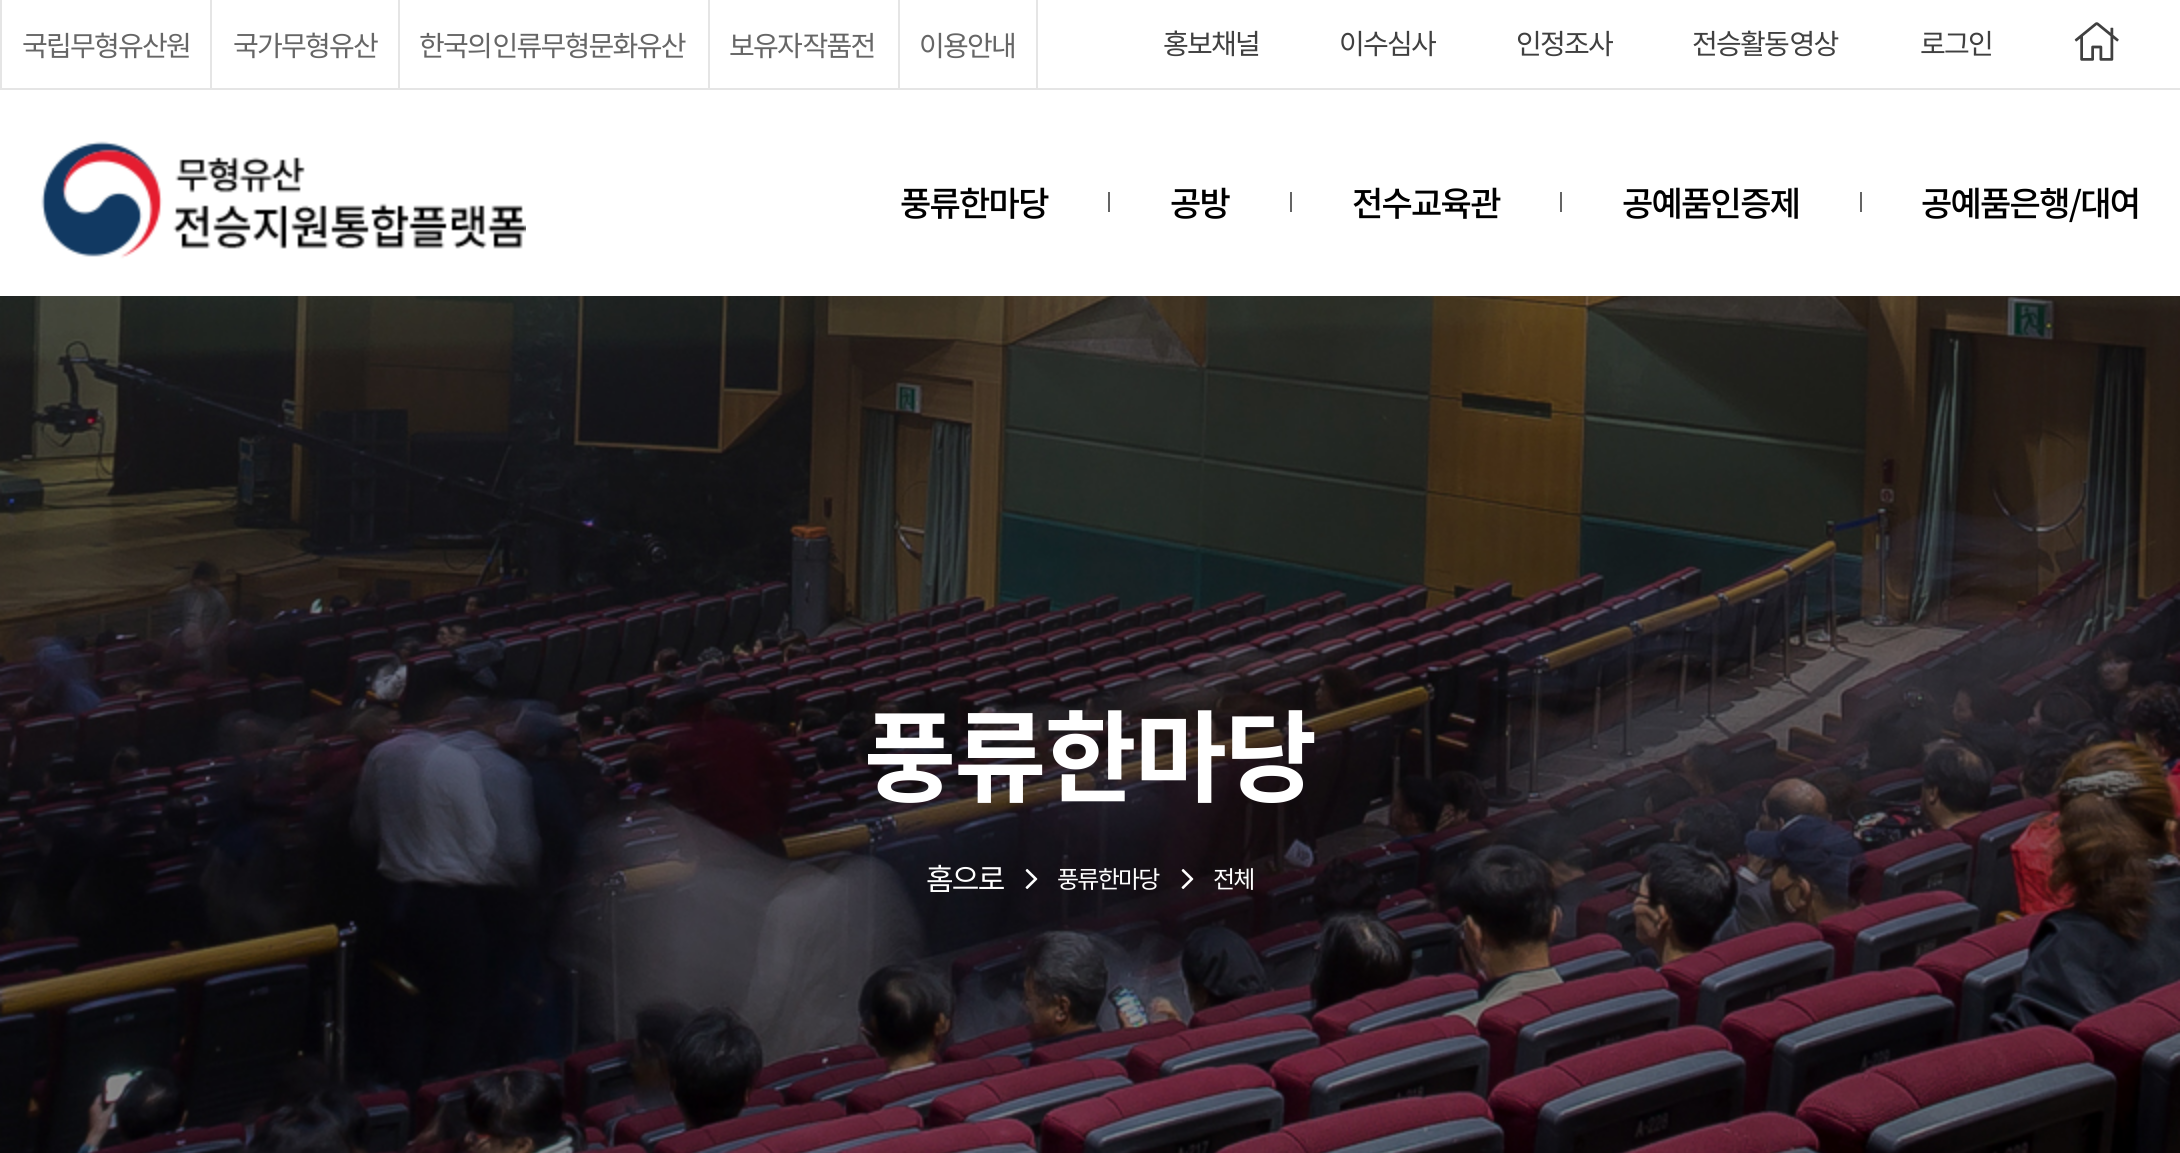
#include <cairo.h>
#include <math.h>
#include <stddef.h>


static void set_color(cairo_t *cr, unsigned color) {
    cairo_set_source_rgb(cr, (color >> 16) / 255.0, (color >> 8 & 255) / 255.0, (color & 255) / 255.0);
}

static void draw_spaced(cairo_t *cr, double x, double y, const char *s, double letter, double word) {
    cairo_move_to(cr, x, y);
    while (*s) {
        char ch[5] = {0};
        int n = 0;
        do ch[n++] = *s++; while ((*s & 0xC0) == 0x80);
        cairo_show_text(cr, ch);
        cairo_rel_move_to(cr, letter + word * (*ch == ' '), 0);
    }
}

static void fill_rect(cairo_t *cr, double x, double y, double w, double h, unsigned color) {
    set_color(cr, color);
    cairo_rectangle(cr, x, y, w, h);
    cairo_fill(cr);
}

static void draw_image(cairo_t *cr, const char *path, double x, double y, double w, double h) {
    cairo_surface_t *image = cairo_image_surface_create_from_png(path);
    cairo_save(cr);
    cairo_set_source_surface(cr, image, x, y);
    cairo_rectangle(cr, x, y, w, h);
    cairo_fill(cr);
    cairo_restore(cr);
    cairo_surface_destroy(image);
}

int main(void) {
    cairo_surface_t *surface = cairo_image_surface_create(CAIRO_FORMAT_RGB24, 2180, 1153);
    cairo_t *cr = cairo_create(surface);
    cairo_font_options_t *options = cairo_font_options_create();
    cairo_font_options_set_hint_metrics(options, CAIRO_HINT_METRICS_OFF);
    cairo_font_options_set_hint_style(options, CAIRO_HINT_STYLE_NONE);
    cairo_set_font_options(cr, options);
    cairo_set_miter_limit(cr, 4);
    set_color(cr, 0xFFFFFF);
    cairo_paint(cr);
    fill_rect(cr, 0, 88, 2180, 2, 0xE5E5E5);
    fill_rect(cr, 0, 0, 2, 88, 0xE5E5E5);
    cairo_select_font_face(cr, "Noto Sans KR", CAIRO_FONT_SLANT_NORMAL, CAIRO_FONT_WEIGHT_NORMAL);
    cairo_set_font_size(cr, 28);
    set_color(cr, 0x666666);
    draw_spaced(cr, 22, 56, "국립무형유산원", -1.75, 0);
    fill_rect(cr, 210, 0, 2, 88, 0xE5E5E5);
    set_color(cr, 0x666666);
    draw_spaced(cr, 233, 56, "국가무형유산", -1.75, 0);
    fill_rect(cr, 398, 0, 2, 88, 0xE5E5E5);
    set_color(cr, 0x666666);
    draw_spaced(cr, 419, 56, "한국의 인류무형문화유산", -1.75, -3);
    fill_rect(cr, 708, 0, 2, 88, 0xE5E5E5);
    set_color(cr, 0x666666);
    draw_spaced(cr, 729, 56, "보유자 작품전", -1.75, -3);
    fill_rect(cr, 1036, 0, 2, 88, 0xE5E5E5);
    fill_rect(cr, 898, 0, 2, 88, 0xE5E5E5);
    set_color(cr, 0x666666);
    draw_spaced(cr, 919, 56, "이용안내", -1.75, 0);
    set_color(cr, 0x404040);
    draw_spaced(cr, 1163, 54, "홍보채널", -1.75, 0);
    draw_spaced(cr, 1339, 54, "이수심사", -1.75, 0);
    draw_spaced(cr, 1516, 54, "인정조사", -1.75, 0);
    draw_spaced(cr, 1692, 54, "전승활동 영상", -1.75, -3);
    draw_spaced(cr, 1920, 54, "로그인", -1.75, 0);
    draw_image(cr, "assets/img1.png", 2074, 22, 45, 39);
    draw_image(cr, "assets/img2.png", 41, 141, 485, 118);
    cairo_select_font_face(cr, "Noto Sans KR Medium", CAIRO_FONT_SLANT_NORMAL, CAIRO_FONT_WEIGHT_NORMAL);
    cairo_set_font_size(cr, 34);
    set_color(cr, 0x000000);
    draw_spaced(cr, 900, 216, "풍류한마당", -1.75, 0);
    fill_rect(cr, 1108, 192, 2, 20, 0x646464);
    set_color(cr, 0x000000);
    draw_spaced(cr, 1170, 216, "공방", -1.75, 0);
    fill_rect(cr, 1290, 192, 2, 20, 0x646464);
    set_color(cr, 0x000000);
    draw_spaced(cr, 1352, 216, "전수교육관", -1.75, 0);
    fill_rect(cr, 1560, 192, 2, 20, 0x646464);
    set_color(cr, 0x000000);
    draw_spaced(cr, 1622, 216, "공예품인증제", -1.75, 0);
    fill_rect(cr, 1860, 192, 2, 20, 0x646464);
    set_color(cr, 0x000000);
    draw_spaced(cr, 1921, 216, "공예품은행/대여", -1.75, 0);
    draw_image(cr, "assets/img3.png", 0, 296, 2180, 857);
    cairo_select_font_face(cr, "Noto Sans KR", CAIRO_FONT_SLANT_NORMAL, CAIRO_FONT_WEIGHT_BOLD);
    cairo_set_font_size(cr, 100);
    set_color(cr, 0xFFFFFF);
    draw_spaced(cr, 864, 794, "풍류한마당", -1.75, 0);
    cairo_select_font_face(cr, "Noto Sans KR", CAIRO_FONT_SLANT_NORMAL, CAIRO_FONT_WEIGHT_NORMAL);
    cairo_set_font_size(cr, 30);
    draw_spaced(cr, 926, 890, "홈으로", -1.75, 0);
    draw_image(cr, "assets/img4.png", 1025, 869, 13, 20);
    cairo_set_font_size(cr, 24);
    draw_spaced(cr, 1057, 888, "풍류한마당", -1.75, 0);
    draw_image(cr, "assets/img5.png", 1181, 869, 13, 20);
    draw_spaced(cr, 1213, 888, "전체", -1.75, 0);
    cairo_surface_write_to_png(surface, "output.png");
    cairo_font_options_destroy(options);
    cairo_destroy(cr);
    cairo_surface_destroy(surface);
    return 0;
}
